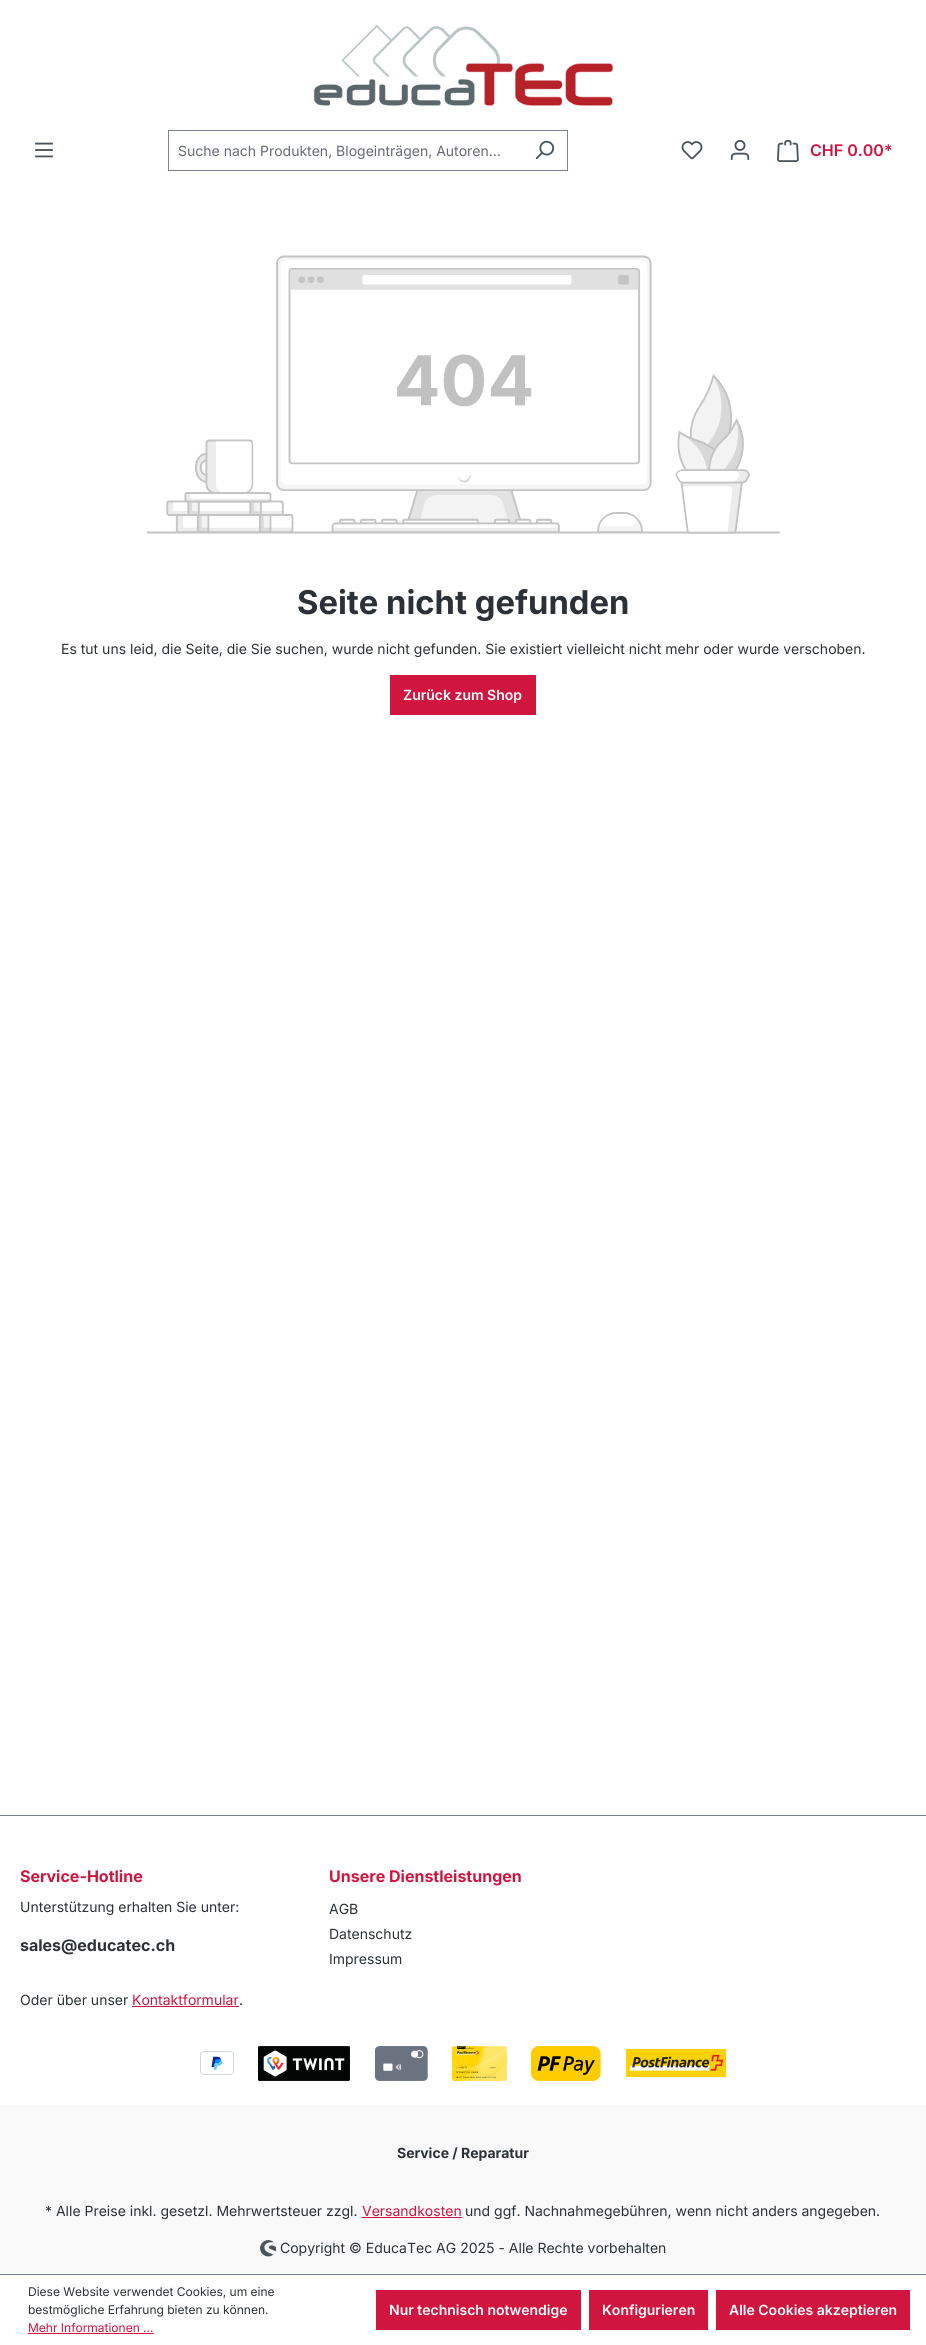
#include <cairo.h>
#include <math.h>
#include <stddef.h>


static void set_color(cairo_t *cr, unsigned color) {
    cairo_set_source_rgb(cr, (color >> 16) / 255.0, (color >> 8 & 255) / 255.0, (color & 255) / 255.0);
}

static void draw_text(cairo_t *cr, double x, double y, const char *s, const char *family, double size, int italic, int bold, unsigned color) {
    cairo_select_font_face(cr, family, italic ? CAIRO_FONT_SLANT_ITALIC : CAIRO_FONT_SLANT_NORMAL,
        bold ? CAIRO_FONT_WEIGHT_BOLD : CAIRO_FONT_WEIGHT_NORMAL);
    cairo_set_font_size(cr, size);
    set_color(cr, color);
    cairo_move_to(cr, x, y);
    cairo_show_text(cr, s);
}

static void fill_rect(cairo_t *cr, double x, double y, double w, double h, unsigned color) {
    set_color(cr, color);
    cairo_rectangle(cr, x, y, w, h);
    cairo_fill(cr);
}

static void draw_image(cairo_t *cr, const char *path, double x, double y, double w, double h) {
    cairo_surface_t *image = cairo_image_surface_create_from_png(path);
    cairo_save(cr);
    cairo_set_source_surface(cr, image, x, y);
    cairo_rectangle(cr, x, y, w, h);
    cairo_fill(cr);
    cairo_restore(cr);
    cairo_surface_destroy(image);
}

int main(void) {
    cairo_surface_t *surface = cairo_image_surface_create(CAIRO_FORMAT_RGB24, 926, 2345);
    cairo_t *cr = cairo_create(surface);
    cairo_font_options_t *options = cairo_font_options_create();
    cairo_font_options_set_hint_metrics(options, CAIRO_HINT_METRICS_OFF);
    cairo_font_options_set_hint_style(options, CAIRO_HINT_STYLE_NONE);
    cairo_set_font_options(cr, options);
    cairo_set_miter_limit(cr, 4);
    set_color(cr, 0xFFFFFF);
    cairo_paint(cr);
    draw_image(cr, "assets/img1.png", 313, 24, 300, 82);
    draw_image(cr, "assets/img2.png", 34, 142, 20, 16);
    fill_rect(cr, 168, 130, 400, 1, 0x798490);
    fill_rect(cr, 168, 170, 354, 1, 0x798490);
    fill_rect(cr, 168, 130, 1, 41, 0x798490);
    draw_text(cr, 178, 156, "Suche nach Produkten, Blogeinträgen, Autoren...", "Inter", 14, 0, 0, 0x666977);
    fill_rect(cr, 567, 130, 1, 41, 0x798490);
    fill_rect(cr, 521, 170, 47, 1, 0x798490);
    draw_image(cr, "assets/img3.png", 535, 140, 20, 20);
    draw_image(cr, "assets/img4.png", 681, 141, 22, 19);
    draw_image(cr, "assets/img5.png", 730, 139, 20, 22);
    draw_image(cr, "assets/img6.png", 777, 140, 22, 22);
    draw_text(cr, 810, 156, "CHF 0.00*", "Inter SemiBold", 16, 0, 0, 0xD0153F);
    draw_image(cr, "assets/img7.png", 146, 255, 634, 279);
    draw_text(cr, 297, 614, "Seite nicht gefunden", "Inter", 32.75, 0, 1, 0x2B3136);
    draw_text(cr, 61, 654, "Es tut uns leid, die Seite, die Sie suchen, wurde nicht gefunden. Sie existiert vielleicht nicht mehr oder wurde verschoben.", "Inter", 14, 0, 0, 0x2B3136);
    fill_rect(cr, 390, 675, 146, 40, 0xD0153F);
    draw_text(cr, 403, 700, "Zurück zum Shop", "Inter SemiBold", 14, 0, 0, 0xFFFFFF);
    fill_rect(cr, 0, 1815, 926, 1, 0x798490);
    draw_text(cr, 20, 1882, "Service-Hotline", "Inter", 16, 0, 1, 0xD0153F);
    draw_text(cr, 20, 1912, "Unterstützung erhalten Sie unter:", "Inter", 14, 0, 0, 0x2B3136);
    draw_text(cr, 20, 1951, "sales@educatec.ch", "Inter", 16, 0, 1, 0x2B3136);
    draw_text(cr, 20, 2005, "Oder über unser", "Inter", 14, 0, 0, 0x2B3136);
    draw_text(cr, 132, 2005, "Kontaktformular", "Inter", 14, 0, 0, 0xD0153F);
    fill_rect(cr, 132, 2006, 107, 1, 0xD0153F);
    draw_text(cr, 239, 2005, ".", "Inter", 14, 0, 0, 0x2B3136);
    draw_text(cr, 329, 1882, "Unsere Dienstleistungen", "Inter", 16, 0, 1, 0xD0153F);
    draw_text(cr, 329, 1914, "AGB", "Inter", 14, 0, 0, 0x2B3136);
    draw_text(cr, 329, 1939, "Datenschutz", "Inter", 14, 0, 0, 0x2B3136);
    draw_text(cr, 329, 1964, "Impressum", "Inter", 14, 0, 0, 0x2B3136);
    draw_image(cr, "assets/img8.png", 200, 2051, 34, 24);
    draw_image(cr, "assets/img9.png", 258, 2046, 92, 35);
    draw_image(cr, "assets/img10.png", 375, 2046, 53, 35);
    draw_image(cr, "assets/img11.png", 452, 2046, 55, 35);
    draw_image(cr, "assets/img12.png", 531, 2046, 70, 35);
    draw_image(cr, "assets/img13.png", 626, 2049, 100, 28);
    fill_rect(cr, 0, 2105, 926, 169, 0xF9F9F9);
    draw_text(cr, 397, 2158, "Service / Reparatur", "Inter", 14, 0, 1, 0x2B3136);
    draw_text(cr, 45, 2216, "* Alle Preise inkl. gesetzl. Mehrwertsteuer zzgl.", "Inter", 14, 0, 0, 0x2B3136);
    draw_text(cr, 362, 2216, "Versandkosten", "Inter", 14, 0, 0, 0xD0153F);
    fill_rect(cr, 362, 2217, 100, 1, 0xD0153F);
    draw_text(cr, 465, 2216, "und ggf. Nachnahmegebühren, wenn nicht anders angegeben.", "Inter", 14, 0, 0, 0x2B3136);
    draw_image(cr, "assets/img14.png", 260, 2240, 16, 17);
    draw_text(cr, 280, 2253, "Copyright © EducaTec AG 2025 - Alle Rechte vorbehalten", "Inter", 14, 0, 0, 0x2B3136);
    fill_rect(cr, 0, 2274, 926, 1, 0x798490);
    draw_text(cr, 28, 2296, "Diese Website verwendet Cookies, um eine", "Inter", 12, 0, 0, 0x2B3136);
    draw_text(cr, 28, 2314, "bestmögliche Erfahrung bieten zu können.", "Inter", 12, 0, 0, 0x2B3136);
    draw_text(cr, 28, 2332, "Mehr Informationen ...", "Inter", 12, 0, 0, 0xD0153F);
    fill_rect(cr, 28, 2333, 126, 1, 0xD0153F);
    fill_rect(cr, 376, 2290, 205, 40, 0xD0153F);
    draw_text(cr, 389, 2315, "Nur technisch notwendige", "Inter SemiBold", 14, 0, 0, 0xFFFFFF);
    fill_rect(cr, 589, 2290, 119, 40, 0xD0153F);
    draw_text(cr, 602, 2315, "Konfigurieren", "Inter SemiBold", 14, 0, 0, 0xFFFFFF);
    fill_rect(cr, 716, 2290, 194, 40, 0xD0153F);
    draw_text(cr, 729, 2315, "Alle Cookies akzeptieren", "Inter SemiBold", 14, 0, 0, 0xFFFFFF);
    cairo_surface_write_to_png(surface, "output.png");
    cairo_font_options_destroy(options);
    cairo_destroy(cr);
    cairo_surface_destroy(surface);
    return 0;
}
